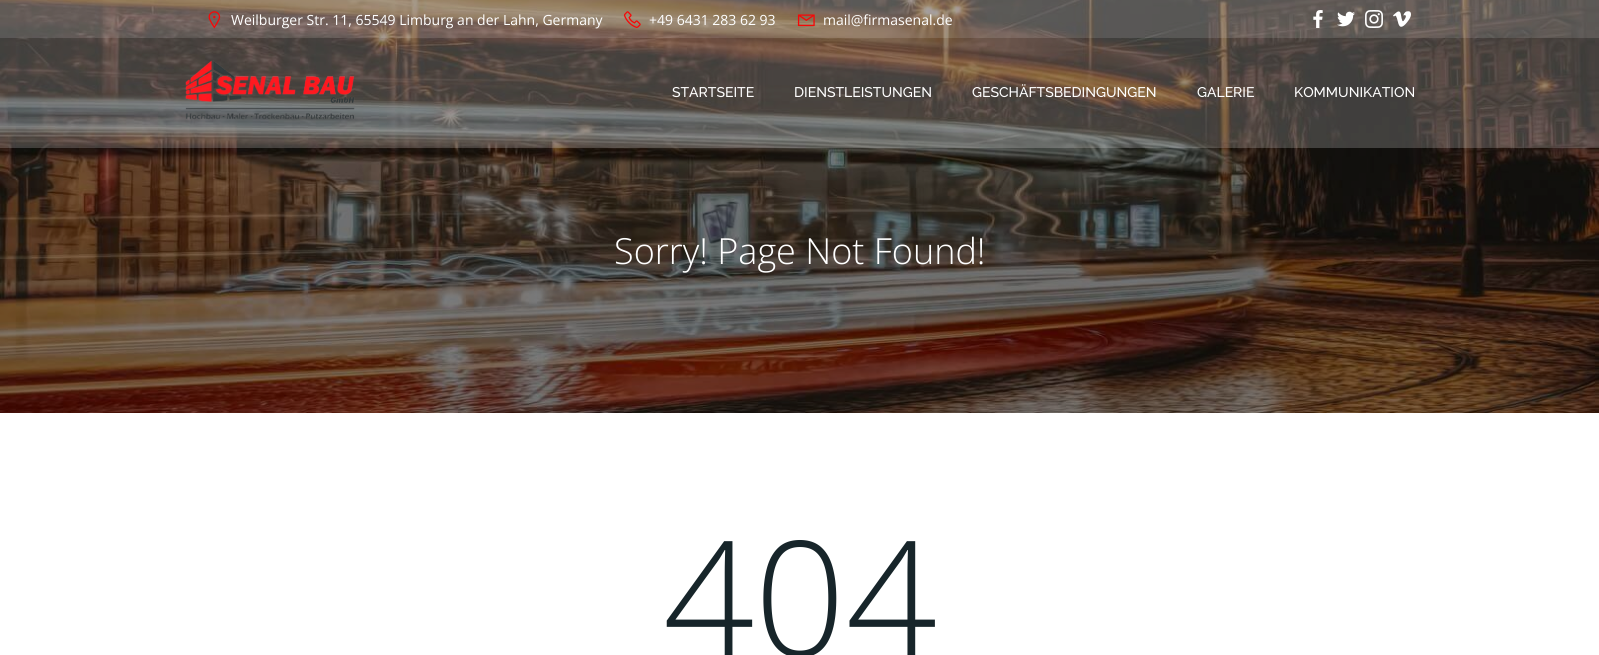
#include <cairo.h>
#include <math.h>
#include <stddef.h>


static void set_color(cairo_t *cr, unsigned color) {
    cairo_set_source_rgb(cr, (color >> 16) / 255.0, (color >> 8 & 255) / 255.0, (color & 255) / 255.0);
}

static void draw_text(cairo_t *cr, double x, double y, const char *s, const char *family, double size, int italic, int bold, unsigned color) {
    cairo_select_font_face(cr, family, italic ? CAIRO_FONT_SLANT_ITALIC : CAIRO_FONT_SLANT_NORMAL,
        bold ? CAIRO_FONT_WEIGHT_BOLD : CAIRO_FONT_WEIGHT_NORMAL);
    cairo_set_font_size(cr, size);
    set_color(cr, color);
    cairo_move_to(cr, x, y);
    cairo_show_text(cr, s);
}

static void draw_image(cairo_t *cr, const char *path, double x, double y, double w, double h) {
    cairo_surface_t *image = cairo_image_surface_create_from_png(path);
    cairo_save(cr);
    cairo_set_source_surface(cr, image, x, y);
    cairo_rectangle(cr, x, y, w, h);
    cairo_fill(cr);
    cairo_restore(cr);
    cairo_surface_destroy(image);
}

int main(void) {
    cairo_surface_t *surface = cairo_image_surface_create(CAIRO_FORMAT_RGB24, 1599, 655);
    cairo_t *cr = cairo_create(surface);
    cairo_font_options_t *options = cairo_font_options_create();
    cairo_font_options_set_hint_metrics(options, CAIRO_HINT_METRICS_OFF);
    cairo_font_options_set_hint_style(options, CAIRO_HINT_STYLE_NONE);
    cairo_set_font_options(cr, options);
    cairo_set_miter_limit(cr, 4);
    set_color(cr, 0xFFFFFF);
    cairo_paint(cr);
    draw_image(cr, "assets/img9.png", 0, 0, 1599, 413);
    cairo_set_source_rgba(cr, 1, 1, 1, 0.3);
    cairo_rectangle(cr, 0, 0, 1599, 38);
    cairo_fill(cr);
    draw_image(cr, "assets/img1.png", 208, 11, 13, 18);
    draw_text(cr, 231, 25, "Weilburger Str. 11, 65549 Limburg an der Lahn, Germany", "Open Sans", 14, 0, 0, 0xFFFFFF);
    draw_image(cr, "assets/img2.png", 623, 11, 18, 17);
    draw_text(cr, 649, 25, "+49 6431 283 62 93", "Open Sans", 14, 0, 0, 0xFFFFFF);
    draw_image(cr, "assets/img3.png", 797, 14, 18, 13);
    draw_text(cr, 823, 25, "mail@firmasenal.de", "Open Sans", 14, 0, 0, 0xFFFFFF);
    draw_image(cr, "assets/img4.png", 1313, 10, 10, 18);
    draw_image(cr, "assets/img5.png", 1337, 11, 18, 16);
    draw_image(cr, "assets/img6.png", 1365, 10, 18, 18);
    draw_image(cr, "assets/img7.png", 1393, 11, 18, 16);
    cairo_set_source_rgba(cr, 1, 1, 1, 0.2);
    cairo_rectangle(cr, 0, 38, 1599, 110);
    cairo_fill(cr);
    draw_image(cr, "assets/img8.png", 185, 60, 170, 60);
    draw_text(cr, 672, 97, "STARTSEITE", "Raleway Medium", 14, 0, 0, 0xFFFFFF);
    draw_text(cr, 794, 97, "DIENSTLEISTUNGEN", "Raleway Medium", 14, 0, 0, 0xFFFFFF);
    draw_text(cr, 972, 97, "GESCHÄFTSBEDINGUNGEN", "Raleway Medium", 14, 0, 0, 0xFFFFFF);
    draw_text(cr, 1197, 97, "GALERIE", "Raleway Medium", 14, 0, 0, 0xFFFFFF);
    draw_text(cr, 1294, 97, "KOMMUNIKATION", "Raleway Medium", 14, 0, 0, 0xFFFFFF);
    draw_text(cr, 614, 264, "Sorry! Page Not Found!", "Open Sans Light", 36, 0, 0, 0xFFFFFF);
    draw_text(cr, 663, 656, "404", "Open Sans Light", 160, 0, 0, 0x17252A);
    cairo_surface_write_to_png(surface, "output.png");
    cairo_font_options_destroy(options);
    cairo_destroy(cr);
    cairo_surface_destroy(surface);
    return 0;
}
